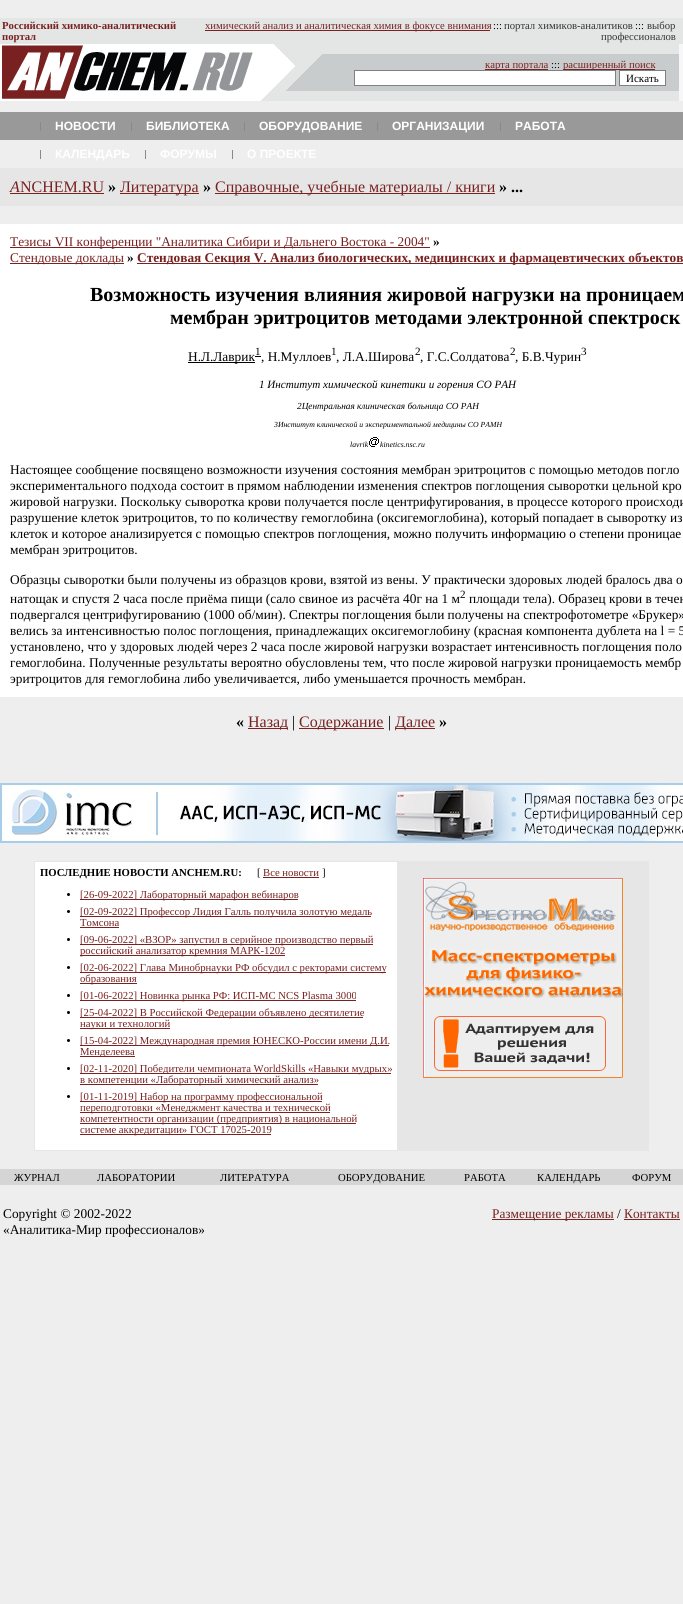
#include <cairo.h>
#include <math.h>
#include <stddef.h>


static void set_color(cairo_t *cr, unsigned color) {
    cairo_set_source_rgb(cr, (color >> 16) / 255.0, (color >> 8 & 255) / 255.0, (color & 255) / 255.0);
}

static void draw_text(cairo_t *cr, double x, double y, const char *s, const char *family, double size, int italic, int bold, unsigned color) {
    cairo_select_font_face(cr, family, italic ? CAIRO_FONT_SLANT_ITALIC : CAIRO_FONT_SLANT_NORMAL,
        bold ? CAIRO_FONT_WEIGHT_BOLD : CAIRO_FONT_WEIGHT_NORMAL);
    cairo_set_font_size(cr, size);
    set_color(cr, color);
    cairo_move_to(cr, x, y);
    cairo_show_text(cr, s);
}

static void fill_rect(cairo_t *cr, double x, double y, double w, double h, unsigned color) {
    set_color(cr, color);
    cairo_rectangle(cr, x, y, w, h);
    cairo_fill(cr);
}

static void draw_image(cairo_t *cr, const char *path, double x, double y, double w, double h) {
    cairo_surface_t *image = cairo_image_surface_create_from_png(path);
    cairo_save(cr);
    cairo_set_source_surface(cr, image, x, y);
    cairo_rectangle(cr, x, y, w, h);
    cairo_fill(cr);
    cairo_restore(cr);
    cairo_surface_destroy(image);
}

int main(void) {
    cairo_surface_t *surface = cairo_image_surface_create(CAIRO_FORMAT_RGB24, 683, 1604);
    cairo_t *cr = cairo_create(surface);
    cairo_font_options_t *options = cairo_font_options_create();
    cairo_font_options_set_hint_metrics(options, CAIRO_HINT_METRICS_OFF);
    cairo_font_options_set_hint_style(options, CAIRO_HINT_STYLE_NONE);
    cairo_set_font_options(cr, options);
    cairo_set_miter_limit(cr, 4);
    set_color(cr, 0xEEEEEE);
    cairo_paint(cr);
    fill_rect(cr, 0, 18, 683, 26, 0xE4E6E6);
    draw_text(cr, 2, 29, "Российский химико-аналитический", "Liberation Serif", 10.7, 0, 1, 0x792121);
    draw_text(cr, 2, 40, "портал", "Liberation Serif", 10.7, 0, 1, 0x792121);
    fill_rect(cr, 205, 30, 285, 1, 0x782221);
    draw_text(cr, 205, 29, "химический анализ и аналитическая химия в фокусе внимания", "Liberation Serif", 10.7, 0, 0, 0x792121);
    draw_text(cr, 493, 29, ":::", "Liberation Serif", 10.7, 0, 0, 0x000000);
    draw_text(cr, 504, 29, "портал химиков-аналитиков", "Liberation Serif", 10.7, 0, 0, 0x333333);
    draw_text(cr, 635, 29, ":::", "Liberation Serif", 10.7, 0, 0, 0x000000);
    draw_text(cr, 647, 29, "выбор", "Liberation Serif", 10.7, 0, 0, 0x333333);
    draw_text(cr, 601, 40, "профессионалов", "Liberation Serif", 10.7, 0, 0, 0x333333);
    draw_image(cr, "assets/img1.png", 0, 44, 260, 57);
    draw_image(cr, "assets/img2.png", 260, 44, 419, 57);
    fill_rect(cr, 485, 69, 63, 1, 0x782221);
    draw_text(cr, 485, 68, "карта портала", "Liberation Serif", 10.7, 0, 0, 0x792121);
    draw_text(cr, 551, 68, ":::", "Liberation Serif", 10.7, 0, 0, 0x000000);
    fill_rect(cr, 563, 69, 92, 1, 0x782221);
    draw_text(cr, 563, 68, "расширенный поиск", "Liberation Serif", 10.7, 0, 0, 0x792121);
    set_color(cr, 0xFFFFFF);
    cairo_rectangle(cr, 354.5, 70.5, 261, 15);
    cairo_fill_preserve(cr);
    set_color(cr, 0x808080);
    cairo_set_line_width(cr, 1);
    cairo_stroke(cr);
    set_color(cr, 0xFFFFFF);
    cairo_rectangle(cr, 619.5, 70.5, 46, 15);
    cairo_fill_preserve(cr);
    set_color(cr, 0x808080);
    cairo_stroke(cr);
    draw_text(cr, 626, 82, "Искать", "Liberation Serif", 11, 0, 0, 0x000000);
    fill_rect(cr, 679, 44, 4, 57, 0xF7F7F7);
    fill_rect(cr, 0, 112, 683, 28, 0x999999);
    fill_rect(cr, 40, 122, 1, 9, 0x868991);
    draw_text(cr, 55, 130, "НОВОСТИ", "Liberation Sans", 12, 0, 1, 0xFFFFFF);
    fill_rect(cr, 131, 122, 1, 9, 0x868991);
    draw_text(cr, 146, 130, "БИБЛИОТЕКА", "Liberation Sans", 12, 0, 1, 0xFFFFFF);
    fill_rect(cr, 244, 122, 1, 9, 0x868991);
    draw_text(cr, 259, 130, "ОБОРУДОВАНИЕ", "Liberation Sans", 12, 0, 1, 0xFFFFFF);
    fill_rect(cr, 377, 122, 1, 9, 0x868991);
    draw_text(cr, 392, 130, "ОРГАНИЗАЦИИ", "Liberation Sans", 12, 0, 1, 0xFFFFFF);
    fill_rect(cr, 500, 122, 1, 9, 0x868991);
    draw_text(cr, 515, 130, "РАБОТА", "Liberation Sans", 12, 0, 1, 0xFFFFFF);
    fill_rect(cr, 40, 150, 1, 9, 0x868991);
    draw_text(cr, 55, 158, "КАЛЕНДАРЬ", "Liberation Sans", 12, 0, 1, 0xFFFFFF);
    fill_rect(cr, 145, 150, 1, 9, 0x868991);
    draw_text(cr, 160, 158, "ФОРУМЫ", "Liberation Sans", 12, 0, 1, 0xFFFFFF);
    fill_rect(cr, 232, 150, 1, 9, 0x868991);
    draw_text(cr, 247, 158, "О ПРОЕКТЕ", "Liberation Sans", 12, 0, 1, 0xFFFFFF);
    fill_rect(cr, 0, 168, 683, 38, 0xE6E6E6);
    draw_text(cr, 10, 192, "A", "Liberation Serif", 16, 1, 0, 0x792121);
    draw_text(cr, 20, 192, "NCHEM.RU", "Liberation Serif", 16, 0, 0, 0x792121);
    fill_rect(cr, 10, 193, 94, 1, 0x782221);
    draw_text(cr, 108, 192, "»", "Liberation Serif", 16, 0, 1, 0x000000);
    fill_rect(cr, 120, 193, 79, 1, 0x782221);
    draw_text(cr, 120, 192, "Литература", "Liberation Serif", 16, 0, 0, 0x792121);
    draw_text(cr, 203, 192, "»", "Liberation Serif", 16, 0, 1, 0x000000);
    fill_rect(cr, 215, 193, 280, 1, 0x782221);
    draw_text(cr, 215, 192, "Справочные, учебные материалы / книги", "Liberation Serif", 16, 0, 0, 0x792121);
    draw_text(cr, 499, 192, "» ...", "Liberation Serif", 16, 0, 1, 0x000000);
    fill_rect(cr, 0, 224, 683, 473, 0xFFFFFF);
    fill_rect(cr, 10, 247, 420, 1, 0x782221);
    draw_text(cr, 10, 246, "Тезисы VII конференции \"Аналитика Сибири и Дальнего Востока - 2004\"", "Liberation Serif", 13.33, 0, 0, 0x792121);
    draw_text(cr, 433, 246, "»", "Liberation Serif", 13.33, 0, 1, 0x000000);
    fill_rect(cr, 10, 263, 114, 1, 0x782221);
    draw_text(cr, 10, 262, "Стендовые доклады", "Liberation Serif", 13.33, 0, 0, 0x792121);
    draw_text(cr, 127, 262, "»", "Liberation Serif", 13.33, 0, 1, 0x000000);
    fill_rect(cr, 137, 263, 546, 1, 0x782221);
    draw_text(cr, 137, 262, "Стендовая Секция V. Анализ биологических, медицинских и фармацевтических объектов", "Liberation Serif", 13.33, 0, 1, 0x792121);
    draw_text(cr, 90, 301, "Возможность изучения влияния жировой нагрузки на проницаем", "Liberation Serif", 20, 0, 1, 0x000000);
    draw_text(cr, 170, 324, "мембран эритроцитов методами электронной спектроск", "Liberation Serif", 20, 0, 1, 0x000000);
    fill_rect(cr, 188, 362, 67, 1, 0x000000);
    draw_text(cr, 188, 361, "Н.Л.Лаврик", "Liberation Serif", 13.33, 0, 0, 0x000000);
    fill_rect(cr, 255, 356, 6, 1, 0x000000);
    draw_text(cr, 255, 355, "1", "Liberation Serif", 11.1, 0, 0, 0x000000);
    draw_text(cr, 261, 361, ", Н.Муллоев", "Liberation Serif", 13.33, 0, 0, 0x000000);
    draw_text(cr, 331, 355, "1", "Liberation Serif", 11.1, 0, 0, 0x000000);
    draw_text(cr, 336, 361, ", Л.А.Широва", "Liberation Serif", 13.33, 0, 0, 0x000000);
    draw_text(cr, 415, 355, "2", "Liberation Serif", 11.1, 0, 0, 0x000000);
    draw_text(cr, 420, 361, ", Г.C.Солдатова", "Liberation Serif", 13.33, 0, 0, 0x000000);
    draw_text(cr, 510, 355, "2", "Liberation Serif", 11.1, 0, 0, 0x000000);
    draw_text(cr, 515, 361, ", Б.В.Чурин", "Liberation Serif", 13.33, 0, 0, 0x000000);
    draw_text(cr, 581, 355, "3", "Liberation Serif", 11.1, 0, 0, 0x000000);
    draw_text(cr, 259, 388, "1 Институт химической кинетики и горения СО РАН", "Liberation Serif", 11.1, 1, 0, 0x000000);
    draw_text(cr, 297, 409, "2Центральная клиническая больница СО РАН", "Liberation Serif", 9.25, 1, 0, 0x000000);
    draw_text(cr, 274, 427, "3Институт клинической и экспериментальной медицины СО РАМН", "Liberation Serif", 7.75, 1, 0, 0x000000);
    draw_text(cr, 350, 447, "lavrik", "Liberation Serif", 7.75, 1, 0, 0x000000);
    draw_image(cr, "assets/img3.png", 368, 437, 11, 10);
    draw_text(cr, 380, 447, "kinetics.nsc.ru", "Liberation Serif", 7.75, 1, 0, 0x000000);
    draw_text(cr, 10, 474, "Настоящее сообщение посвящено возможности изучения состояния мембран эритроцитов с помощью методов погло", "Liberation Serif", 13.33, 0, 0, 0x000000);
    draw_text(cr, 10, 490, "экспериментального подхода состоит в прямом наблюдении изменения спектров поглощения сыворотки цельной кро", "Liberation Serif", 13.33, 0, 0, 0x000000);
    draw_text(cr, 10, 506, "жировой нагрузки. Поскольку сыворотка крови получается после центрифугирования, в процессе которого происходи", "Liberation Serif", 13.33, 0, 0, 0x000000);
    draw_text(cr, 10, 522, "разрушение клеток эритроцитов, то по количеству гемоглобина (оксигемоглобина), который попадает в сыворотку из", "Liberation Serif", 13.33, 0, 0, 0x000000);
    draw_text(cr, 10, 538, "клеток и которое анализируется с помощью спектров поглощения, можно получить информацию о степени проницае", "Liberation Serif", 13.33, 0, 0, 0x000000);
    draw_text(cr, 10, 554, "мембран эритроцитов.", "Liberation Serif", 13.33, 0, 0, 0x000000);
    draw_text(cr, 10, 584, "Образцы сыворотки были получены из образцов крови, взятой из вены. У практически здоровых людей бралось два о", "Liberation Serif", 13.33, 0, 0, 0x000000);
    draw_text(cr, 10, 603, "натощак и спустя 2 часа после приёма пищи (сало свиное из расчёта 40г на 1 м", "Liberation Serif", 13.33, 0, 0, 0x000000);
    draw_text(cr, 460, 598, "2", "Liberation Serif", 11.1, 0, 0, 0x000000);
    draw_text(cr, 469, 603, "площади тела). Образец крови в течен", "Liberation Serif", 13.33, 0, 0, 0x000000);
    draw_text(cr, 10, 619, "подвергался центрифугированию (1000 об/мин). Спектры поглощения были получены на спектрофотометре «Брукер»", "Liberation Serif", 13.33, 0, 0, 0x000000);
    draw_text(cr, 10, 635, "велись за интенсивностью полос поглощения, принадлежащих оксигемоглобину (красная компонента дублета на l = 5", "Liberation Serif", 13.33, 0, 0, 0x000000);
    draw_text(cr, 10, 651, "установлено, что у здоровых людей через 2 часа после жировой нагрузки возрастает интенсивность поглощения поло", "Liberation Serif", 13.33, 0, 0, 0x000000);
    draw_text(cr, 10, 667, "гемоглобина. Полученные результаты вероятно обусловлены тем, что после жировой нагрузки проницаемость мембр", "Liberation Serif", 13.33, 0, 0, 0x000000);
    draw_text(cr, 10, 683, "эритроцитов для гемоглобина либо увеличивается, либо уменьшается прочность мембран.", "Liberation Serif", 13.33, 0, 0, 0x000000);
    draw_text(cr, 236, 727, "«", "Liberation Serif", 16, 0, 1, 0x000000);
    fill_rect(cr, 248, 728, 40, 1, 0x782221);
    draw_text(cr, 248, 727, "Назад", "Liberation Serif", 16, 0, 0, 0x792121);
    draw_text(cr, 292, 727, "|", "Liberation Serif", 16, 0, 0, 0x000000);
    fill_rect(cr, 299, 728, 85, 1, 0x782221);
    draw_text(cr, 299, 727, "Содержание", "Liberation Serif", 16, 0, 0, 0x792121);
    draw_text(cr, 388, 727, "|", "Liberation Serif", 16, 0, 0, 0x000000);
    fill_rect(cr, 395, 728, 40, 1, 0x782221);
    draw_text(cr, 395, 727, "Далее", "Liberation Serif", 16, 0, 0, 0x792121);
    draw_text(cr, 439, 727, "»", "Liberation Serif", 16, 0, 1, 0x000000);
    draw_image(cr, "assets/img4.png", 0, 783, 683, 60);
    fill_rect(cr, 34, 861, 615, 290, 0xE6E6E6);
    fill_rect(cr, 35, 862, 362, 288, 0xFFFFFF);
    draw_text(cr, 40, 876, "ПОСЛЕДНИЕ НОВОСТИ ANCHEM.RU:", "Liberation Serif", 10.7, 0, 1, 0x000000);
    draw_text(cr, 257, 876, "[", "Liberation Serif", 10.7, 0, 0, 0x000000);
    draw_text(cr, 263, 876, "Все новости", "Liberation Serif", 10.7, 0, 0, 0x792121);
    fill_rect(cr, 263, 877, 56, 1, 0x782221);
    draw_text(cr, 322, 876, "]", "Liberation Serif", 10.7, 0, 0, 0x000000);
    cairo_new_path(cr);
    cairo_arc(cr, 68.5, 894.5, 1.5, 0, 2 * M_PI);
    cairo_fill(cr);
    fill_rect(cr, 80, 899, 218, 1, 0x782221);
    draw_text(cr, 80, 898, "[26-09-2022] Лабораторный марафон вебинаров", "Liberation Serif", 10.7, 0, 0, 0x792121);
    set_color(cr, 0x000000);
    cairo_new_path(cr);
    cairo_arc(cr, 68.5, 911.5, 1.5, 0, 2 * M_PI);
    cairo_fill(cr);
    fill_rect(cr, 80, 916, 291, 1, 0x782221);
    draw_text(cr, 80, 915, "[02-09-2022] Профессор Лидия Галль получила золотую медаль", "Liberation Serif", 10.7, 0, 0, 0x792121);
    draw_text(cr, 80, 926, "Томсона", "Liberation Serif", 10.7, 0, 0, 0x792121);
    fill_rect(cr, 80, 927, 39, 1, 0x782221);
    set_color(cr, 0x000000);
    cairo_new_path(cr);
    cairo_arc(cr, 68.5, 939.5, 1.5, 0, 2 * M_PI);
    cairo_fill(cr);
    fill_rect(cr, 80, 944, 293, 1, 0x782221);
    draw_text(cr, 80, 943, "[09-06-2022] «ВЗОР» запустил в серийное производство первый", "Liberation Serif", 10.7, 0, 0, 0x792121);
    fill_rect(cr, 80, 955, 205, 1, 0x782221);
    draw_text(cr, 80, 954, "российский анализатор кремния МАРК-1202", "Liberation Serif", 10.7, 0, 0, 0x792121);
    set_color(cr, 0x000000);
    cairo_new_path(cr);
    cairo_arc(cr, 68.5, 967.5, 1.5, 0, 2 * M_PI);
    cairo_fill(cr);
    fill_rect(cr, 80, 972, 306, 1, 0x782221);
    draw_text(cr, 80, 971, "[02-06-2022] Глава Минобрнауки РФ обсудил с ректорами систему", "Liberation Serif", 10.7, 0, 0, 0x792121);
    fill_rect(cr, 80, 983, 57, 1, 0x782221);
    draw_text(cr, 80, 982, "образования", "Liberation Serif", 10.7, 0, 0, 0x792121);
    set_color(cr, 0x000000);
    cairo_new_path(cr);
    cairo_arc(cr, 68.5, 995.5, 1.5, 0, 2 * M_PI);
    cairo_fill(cr);
    fill_rect(cr, 80, 1000, 276, 1, 0x782221);
    draw_text(cr, 80, 999, "[01-06-2022] Новинка рынка РФ: ИСП-МС NCS Plasma 3000", "Liberation Serif", 10.7, 0, 0, 0x792121);
    set_color(cr, 0x000000);
    cairo_new_path(cr);
    cairo_arc(cr, 68.5, 1012.5, 1.5, 0, 2 * M_PI);
    cairo_fill(cr);
    fill_rect(cr, 80, 1017, 283, 1, 0x782221);
    draw_text(cr, 80, 1016, "[25-04-2022] В Российской Федерации объявлено десятилетие", "Liberation Serif", 10.7, 0, 0, 0x792121);
    fill_rect(cr, 80, 1028, 90, 1, 0x782221);
    draw_text(cr, 80, 1027, "науки и технологий", "Liberation Serif", 10.7, 0, 0, 0x792121);
    set_color(cr, 0x000000);
    cairo_new_path(cr);
    cairo_arc(cr, 68.5, 1040.5, 1.5, 0, 2 * M_PI);
    cairo_fill(cr);
    fill_rect(cr, 80, 1045, 309, 1, 0x782221);
    draw_text(cr, 80, 1044, "[15-04-2022] Международная премия ЮНЕСКО-России имени Д.И.", "Liberation Serif", 10.7, 0, 0, 0x792121);
    fill_rect(cr, 80, 1056, 55, 1, 0x782221);
    draw_text(cr, 80, 1055, "Менделеева", "Liberation Serif", 10.7, 0, 0, 0x792121);
    set_color(cr, 0x000000);
    cairo_new_path(cr);
    cairo_arc(cr, 68.5, 1068.5, 1.5, 0, 2 * M_PI);
    cairo_fill(cr);
    fill_rect(cr, 80, 1073, 311, 1, 0x782221);
    draw_text(cr, 80, 1072, "[02-11-2020] Победители чемпионата WorldSkills «Навыки мудрых»", "Liberation Serif", 10.7, 0, 0, 0x792121);
    fill_rect(cr, 80, 1084, 238, 1, 0x782221);
    draw_text(cr, 80, 1083, "в компетенции «Лабораторный химический анализ»", "Liberation Serif", 10.7, 0, 0, 0x792121);
    set_color(cr, 0x000000);
    cairo_new_path(cr);
    cairo_arc(cr, 68.5, 1096.5, 1.5, 0, 2 * M_PI);
    cairo_fill(cr);
    fill_rect(cr, 80, 1101, 242, 1, 0x782221);
    draw_text(cr, 80, 1100, "[01-11-2019] Набор на программу профессиональной", "Liberation Serif", 10.7, 0, 0, 0x792121);
    fill_rect(cr, 80, 1112, 250, 1, 0x782221);
    draw_text(cr, 80, 1111, "переподготовки «Менеджмент качества и технической", "Liberation Serif", 10.7, 0, 0, 0x792121);
    fill_rect(cr, 80, 1123, 276, 1, 0x782221);
    draw_text(cr, 80, 1122, "компетентности организации (предприятия) в национальной", "Liberation Serif", 10.7, 0, 0, 0x792121);
    fill_rect(cr, 80, 1134, 191, 1, 0x782221);
    draw_text(cr, 80, 1133, "системе аккредитации» ГОСТ 17025-2019", "Liberation Serif", 10.7, 0, 0, 0x792121);
    draw_image(cr, "assets/img5.png", 423, 878, 200, 200);
    fill_rect(cr, 0, 1169, 683, 16, 0xD5D5D5);
    draw_text(cr, 14, 1181, "ЖУРНАЛ", "Liberation Serif", 10.7, 0, 0, 0x000000);
    draw_text(cr, 97, 1181, "ЛАБОРАТОРИИ", "Liberation Serif", 10.7, 0, 0, 0x000000);
    draw_text(cr, 220, 1181, "ЛИТЕРАТУРА", "Liberation Serif", 10.7, 0, 0, 0x000000);
    draw_text(cr, 338, 1181, "ОБОРУДОВАНИЕ", "Liberation Serif", 10.7, 0, 0, 0x000000);
    draw_text(cr, 464, 1181, "РАБОТА", "Liberation Serif", 10.7, 0, 0, 0x000000);
    draw_text(cr, 537, 1181, "КАЛЕНДАРЬ", "Liberation Serif", 10.7, 0, 0, 0x000000);
    draw_text(cr, 632, 1181, "ФОРУМ", "Liberation Serif", 10.7, 0, 0, 0x000000);
    draw_text(cr, 3, 1218, "Copyright © 2002-2022", "Liberation Serif", 13.33, 0, 0, 0x000000);
    draw_text(cr, 3, 1234, "«Аналитика-Мир профессионалов»", "Liberation Serif", 13.33, 0, 0, 0x000000);
    fill_rect(cr, 492, 1219, 122, 1, 0x782221);
    draw_text(cr, 492, 1218, "Размещение рекламы", "Liberation Serif", 13.33, 0, 0, 0x792121);
    draw_text(cr, 617, 1218, "/", "Liberation Serif", 13.33, 0, 0, 0x000000);
    draw_text(cr, 624, 1218, "Контакты", "Liberation Serif", 13.33, 0, 0, 0x792121);
    fill_rect(cr, 624, 1219, 56, 1, 0x782221);
    cairo_surface_write_to_png(surface, "output.png");
    cairo_font_options_destroy(options);
    cairo_destroy(cr);
    cairo_surface_destroy(surface);
    return 0;
}
